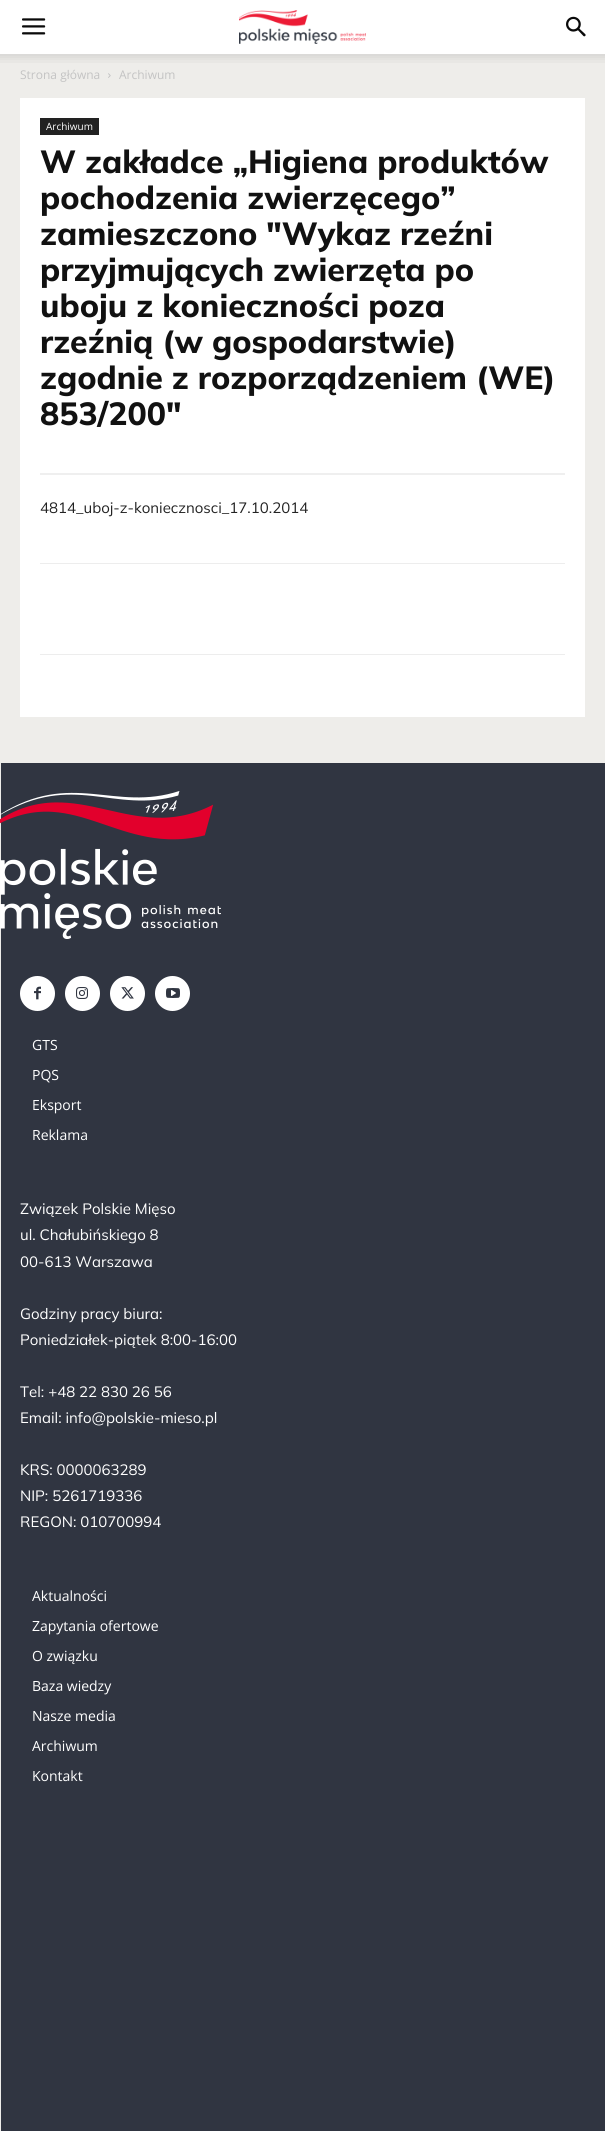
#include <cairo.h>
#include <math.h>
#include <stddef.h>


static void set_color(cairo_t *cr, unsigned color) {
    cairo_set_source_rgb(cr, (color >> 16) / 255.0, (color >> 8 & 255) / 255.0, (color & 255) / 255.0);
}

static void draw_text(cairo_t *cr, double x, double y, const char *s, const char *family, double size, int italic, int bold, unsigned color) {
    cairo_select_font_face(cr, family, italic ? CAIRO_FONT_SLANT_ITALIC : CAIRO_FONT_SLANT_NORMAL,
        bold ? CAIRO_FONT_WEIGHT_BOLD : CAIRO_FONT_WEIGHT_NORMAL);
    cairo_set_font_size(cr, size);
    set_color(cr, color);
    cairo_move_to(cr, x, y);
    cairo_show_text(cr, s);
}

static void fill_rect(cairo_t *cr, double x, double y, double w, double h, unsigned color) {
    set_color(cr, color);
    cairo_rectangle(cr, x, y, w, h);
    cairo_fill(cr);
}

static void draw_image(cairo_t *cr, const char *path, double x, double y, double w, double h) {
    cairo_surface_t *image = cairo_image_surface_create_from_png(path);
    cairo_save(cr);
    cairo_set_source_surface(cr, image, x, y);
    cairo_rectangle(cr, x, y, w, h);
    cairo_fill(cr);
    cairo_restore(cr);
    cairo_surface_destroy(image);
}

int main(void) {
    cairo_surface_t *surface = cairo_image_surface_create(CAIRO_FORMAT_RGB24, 605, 2131);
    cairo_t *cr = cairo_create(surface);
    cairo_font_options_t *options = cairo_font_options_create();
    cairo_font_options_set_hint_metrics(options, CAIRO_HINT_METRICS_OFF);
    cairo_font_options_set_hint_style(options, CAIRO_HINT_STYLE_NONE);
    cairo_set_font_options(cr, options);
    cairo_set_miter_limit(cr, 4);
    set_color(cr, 0xEEEDEA);
    cairo_paint(cr);
    fill_rect(cr, 0, 0, 605, 54, 0xFFFFFF);
    draw_image(cr, "assets/img1.png", 22, 18, 24, 17);
    draw_image(cr, "assets/img2.png", 239, 10, 127, 34);
    draw_image(cr, "assets/img3.png", 566, 16, 20, 21);
    draw_image(cr, "assets/img4.png", 0, 54, 605, 9);
    draw_text(cr, 20, 79, "Strona główna", "Open Sans", 12, 0, 0, 0xC3C3C3);
    draw_image(cr, "assets/img5.png", 108, 73, 3, 5);
    draw_text(cr, 119, 79, "Archiwum", "Open Sans", 12, 0, 0, 0xC3C3C3);
    fill_rect(cr, 20, 98, 565, 619, 0xFFFFFF);
    fill_rect(cr, 40, 118, 59, 17, 0x222222);
    draw_text(cr, 46, 130, "Archiwum", "Open Sans", 10, 0, 0, 0xFFFFFF);
    draw_text(cr, 40, 173, "W zakładce „Higiena produktów", "Mulish ExtraBold", 32, 0, 0, 0x111111);
    draw_text(cr, 40, 209, "pochodzenia zwierzęcego”", "Mulish ExtraBold", 32, 0, 0, 0x111111);
    draw_text(cr, 40, 245, "zamieszczono \"Wykaz rzeźni", "Mulish ExtraBold", 32, 0, 0, 0x111111);
    draw_text(cr, 40, 281, "przyjmujących zwierzęta po", "Mulish ExtraBold", 32, 0, 0, 0x111111);
    draw_text(cr, 40, 317, "uboju z konieczności poza", "Mulish ExtraBold", 32, 0, 0, 0x111111);
    draw_text(cr, 40, 353, "rzeźnią (w gospodarstwie)", "Mulish ExtraBold", 32, 0, 0, 0x111111);
    draw_text(cr, 40, 389, "zgodnie z rozporządzeniem (WE)", "Mulish ExtraBold", 32, 0, 0, 0x111111);
    draw_text(cr, 40, 425, "853/200\"", "Mulish ExtraBold", 32, 0, 0, 0x111111);
    fill_rect(cr, 40, 473, 525, 2, 0xEFEFEF);
    draw_text(cr, 40, 513, "4814_uboj-z-koniecznosci_17.10.2014", "Mulish", 15, 0, 0, 0x222222);
    fill_rect(cr, 40, 563, 525, 1, 0xEDEDED);
    fill_rect(cr, 40, 654, 525, 1, 0xEDEDED);
    fill_rect(cr, 1, 763, 604, 1368, 0x303541);
    draw_image(cr, "assets/img6.png", 0, 791, 221, 148);
    set_color(cr, 0xFFFFFF);
    cairo_arc(cr, 37.5, 993.5, 17.5, 0, 2 * M_PI);
    cairo_fill(cr);
    draw_image(cr, "assets/img7.png", 34, 986, 7, 14);
    cairo_arc(cr, 82.5, 993.5, 17.5, 0, 2 * M_PI);
    cairo_fill(cr);
    draw_image(cr, "assets/img8.png", 76, 987, 12, 12);
    cairo_arc(cr, 127.5, 993.5, 17.5, 0, 2 * M_PI);
    cairo_fill(cr);
    draw_image(cr, "assets/img9.png", 121, 987, 13, 12);
    cairo_arc(cr, 172.5, 993.5, 17.5, 0, 2 * M_PI);
    cairo_fill(cr);
    draw_image(cr, "assets/img10.png", 166, 988, 14, 10);
    draw_text(cr, 32, 1050, "GTS", "Open Sans", 14, 0, 0, 0xFFFFFF);
    draw_text(cr, 32, 1080, "PQS", "Open Sans", 14, 0, 0, 0xFFFFFF);
    draw_text(cr, 32, 1110, "Eksport", "Open Sans", 14, 0, 0, 0xFFFFFF);
    draw_text(cr, 32, 1140, "Reklama", "Open Sans", 14, 0, 0, 0xFFFFFF);
    draw_text(cr, 20, 1214, "Związek Polskie Mięso", "Mulish", 15, 0, 0, 0xFFFFFF);
    draw_text(cr, 20, 1240, "ul. Chałubińskiego 8", "Mulish", 15, 0, 0, 0xFFFFFF);
    draw_text(cr, 20, 1267, "00-613 Warszawa", "Mulish", 15, 0, 0, 0xFFFFFF);
    draw_text(cr, 20, 1319, "Godziny pracy biura:", "Mulish", 15, 0, 0, 0xFFFFFF);
    draw_text(cr, 20, 1345, "Poniedziałek-piątek 8:00-16:00", "Mulish", 15, 0, 0, 0xFFFFFF);
    draw_text(cr, 20, 1397, "Tel: +48 22 830 26 56", "Mulish", 15, 0, 0, 0xFFFFFF);
    draw_text(cr, 20, 1423, "Email: info@polskie-mieso.pl", "Mulish", 15, 0, 0, 0xFFFFFF);
    draw_text(cr, 20, 1475, "KRS: 0000063289", "Mulish", 15, 0, 0, 0xFFFFFF);
    draw_text(cr, 20, 1501, "NIP: 5261719336", "Mulish", 15, 0, 0, 0xFFFFFF);
    draw_text(cr, 20, 1527, "REGON: 010700994", "Mulish", 15, 0, 0, 0xFFFFFF);
    draw_text(cr, 32, 1601, "Aktualności", "Open Sans", 14, 0, 0, 0xFFFFFF);
    draw_text(cr, 32, 1631, "Zapytania ofertowe", "Open Sans", 14, 0, 0, 0xFFFFFF);
    draw_text(cr, 32, 1661, "O związku", "Open Sans", 14, 0, 0, 0xFFFFFF);
    draw_text(cr, 32, 1691, "Baza wiedzy", "Open Sans", 14, 0, 0, 0xFFFFFF);
    draw_text(cr, 32, 1721, "Nasze media", "Open Sans", 14, 0, 0, 0xFFFFFF);
    draw_text(cr, 32, 1751, "Archiwum", "Open Sans", 14, 0, 0, 0xFFFFFF);
    draw_text(cr, 32, 1781, "Kontakt", "Open Sans", 14, 0, 0, 0xFFFFFF);
    cairo_surface_write_to_png(surface, "output.png");
    cairo_font_options_destroy(options);
    cairo_destroy(cr);
    cairo_surface_destroy(surface);
    return 0;
}
